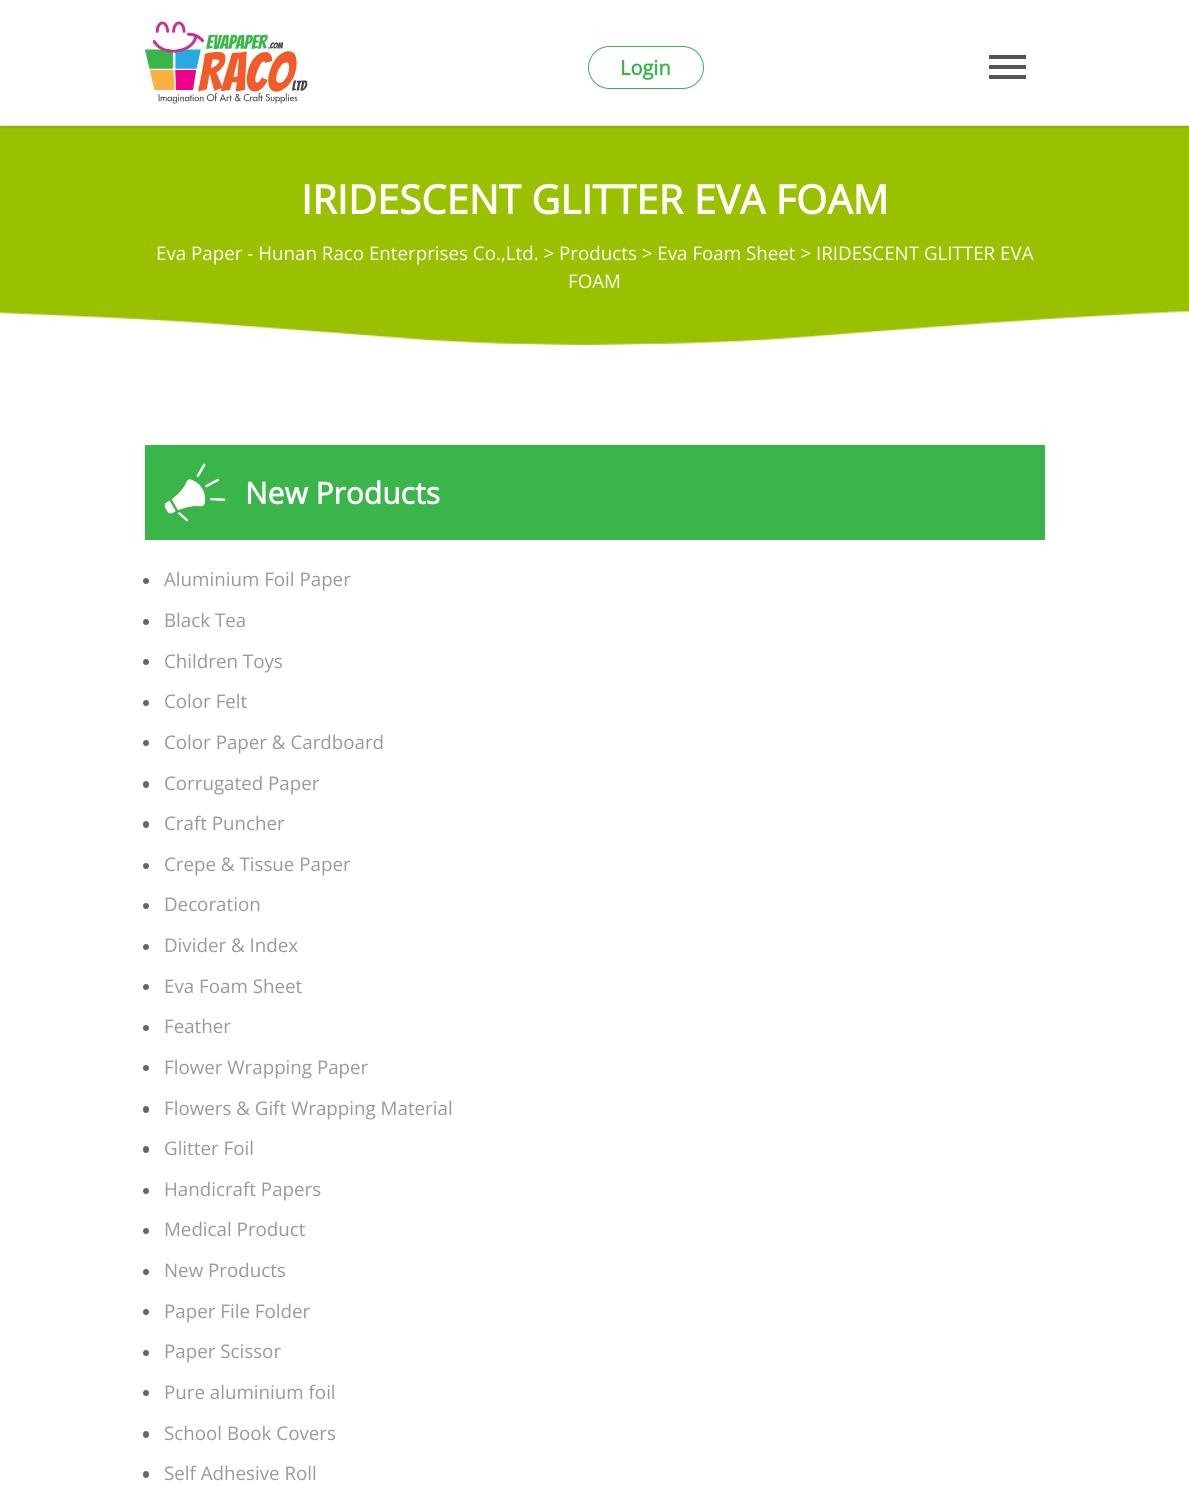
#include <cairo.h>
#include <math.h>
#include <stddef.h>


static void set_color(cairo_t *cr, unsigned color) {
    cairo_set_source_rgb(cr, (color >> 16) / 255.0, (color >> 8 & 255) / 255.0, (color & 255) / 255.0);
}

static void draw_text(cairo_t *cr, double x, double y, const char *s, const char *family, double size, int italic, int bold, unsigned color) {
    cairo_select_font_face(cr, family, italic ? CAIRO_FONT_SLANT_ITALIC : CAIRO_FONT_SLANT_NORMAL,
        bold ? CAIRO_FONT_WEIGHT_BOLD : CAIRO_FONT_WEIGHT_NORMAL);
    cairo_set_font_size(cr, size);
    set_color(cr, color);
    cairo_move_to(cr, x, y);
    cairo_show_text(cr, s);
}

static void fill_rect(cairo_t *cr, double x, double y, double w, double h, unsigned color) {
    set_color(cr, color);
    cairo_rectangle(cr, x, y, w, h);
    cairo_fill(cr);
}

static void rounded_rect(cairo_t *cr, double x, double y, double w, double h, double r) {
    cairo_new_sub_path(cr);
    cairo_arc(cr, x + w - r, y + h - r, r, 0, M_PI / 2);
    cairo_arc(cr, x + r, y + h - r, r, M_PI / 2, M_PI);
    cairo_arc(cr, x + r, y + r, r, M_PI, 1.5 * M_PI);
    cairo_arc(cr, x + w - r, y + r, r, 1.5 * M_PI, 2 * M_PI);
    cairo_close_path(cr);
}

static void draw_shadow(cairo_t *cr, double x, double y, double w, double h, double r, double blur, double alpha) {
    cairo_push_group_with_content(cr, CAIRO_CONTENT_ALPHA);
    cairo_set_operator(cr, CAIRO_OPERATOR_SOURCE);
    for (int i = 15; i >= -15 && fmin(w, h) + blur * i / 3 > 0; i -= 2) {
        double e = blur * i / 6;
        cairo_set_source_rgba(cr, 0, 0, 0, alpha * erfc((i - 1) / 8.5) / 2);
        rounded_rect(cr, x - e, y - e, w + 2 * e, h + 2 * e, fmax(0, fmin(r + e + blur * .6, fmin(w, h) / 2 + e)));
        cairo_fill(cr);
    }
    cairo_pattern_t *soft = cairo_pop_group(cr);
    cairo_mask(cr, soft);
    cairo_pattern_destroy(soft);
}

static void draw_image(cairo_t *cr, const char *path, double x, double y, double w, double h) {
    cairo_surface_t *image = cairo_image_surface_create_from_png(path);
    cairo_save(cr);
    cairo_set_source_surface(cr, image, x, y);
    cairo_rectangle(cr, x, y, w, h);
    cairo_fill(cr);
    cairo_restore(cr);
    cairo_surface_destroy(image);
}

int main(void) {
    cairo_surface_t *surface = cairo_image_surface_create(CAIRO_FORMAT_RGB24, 1189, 1507);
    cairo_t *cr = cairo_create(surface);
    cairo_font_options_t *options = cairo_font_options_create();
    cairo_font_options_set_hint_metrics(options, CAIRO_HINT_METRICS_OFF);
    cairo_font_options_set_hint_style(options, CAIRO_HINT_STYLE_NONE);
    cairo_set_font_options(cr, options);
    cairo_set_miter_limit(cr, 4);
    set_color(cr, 0xFFFFFF);
    cairo_paint(cr);
    fill_rect(cr, 0, 126, 1189, 219, 0x9AC100);
    cairo_save(cr);
    cairo_rectangle(cr, 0, 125, 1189, 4);
    cairo_clip(cr);
    set_color(cr, 0x000000);
    draw_shadow(cr, 0, 3, 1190, 125, 0, 1, 0.1);
    cairo_restore(cr);
    draw_image(cr, "assets/img1.png", 145, 21, 163, 83);
    fill_rect(cr, 989, 65, 37, 4, 0x555555);
    fill_rect(cr, 989, 55, 37, 4, 0x555555);
    fill_rect(cr, 989, 75, 37, 4, 0x555555);
    rounded_rect(cr, 588.5, 46.5, 115, 42, 21);
    set_color(cr, 0x39B54A);
    cairo_set_line_width(cr, 1);
    cairo_stroke(cr);
    draw_text(cr, 620, 75, "Login", "Open Sans", 20, 0, 1, 0x39B54A);
    draw_text(cr, 301, 214, "IRIDESCENT GLITTER EVA FOAM", "Open Sans", 40, 0, 1, 0xFFFFFF);
    draw_text(cr, 156, 260, "Eva Paper - Hunan Raco Enterprises Co.,Ltd. > Products > Eva Foam Sheet > IRIDESCENT GLITTER EVA", "Open Sans", 18.75, 0, 0, 0xFFFFFF);
    draw_text(cr, 568, 288, "FOAM", "Open Sans", 18.75, 0, 0, 0xFFFFFF);
    draw_image(cr, "assets/img2.png", 0, 311, 1189, 34);
    fill_rect(cr, 145, 445, 900, 95, 0x39B54A);
    draw_image(cr, "assets/img3.png", 164, 463, 62, 59);
    draw_text(cr, 245, 504, "New Products", "Open Sans", 30, 0, 1, 0xFFFFFF);
    set_color(cr, 0x666666);
    cairo_new_path(cr);
    cairo_arc(cr, 146, 581, 3, 0, 2 * M_PI);
    cairo_fill(cr);
    draw_text(cr, 164, 586, "Aluminium Foil Paper", "Open Sans", 18.75, 0, 0, 0x999999);
    set_color(cr, 0x666666);
    cairo_new_path(cr);
    cairo_arc(cr, 146, 622, 3, 0, 2 * M_PI);
    cairo_fill(cr);
    draw_text(cr, 164, 627, "Black Tea", "Open Sans", 18.75, 0, 0, 0x999999);
    set_color(cr, 0x666666);
    cairo_new_path(cr);
    cairo_arc(cr, 146, 662, 3, 0, 2 * M_PI);
    cairo_fill(cr);
    draw_text(cr, 164, 668, "Children Toys", "Open Sans", 18.75, 0, 0, 0x999999);
    set_color(cr, 0x666666);
    cairo_new_path(cr);
    cairo_arc(cr, 146, 703, 3, 0, 2 * M_PI);
    cairo_fill(cr);
    draw_text(cr, 164, 708, "Color Felt", "Open Sans", 18.75, 0, 0, 0x999999);
    set_color(cr, 0x666666);
    cairo_new_path(cr);
    cairo_arc(cr, 146, 743, 3, 0, 2 * M_PI);
    cairo_fill(cr);
    draw_text(cr, 164, 749, "Color Paper & Cardboard", "Open Sans", 18.75, 0, 0, 0x999999);
    set_color(cr, 0x666666);
    rounded_rect(cr, 143, 781, 6, 7, 3);
    cairo_fill(cr);
    draw_text(cr, 164, 790, "Corrugated Paper", "Open Sans", 18.75, 0, 0, 0x999999);
    set_color(cr, 0x666666);
    rounded_rect(cr, 143, 821, 6, 7, 3);
    cairo_fill(cr);
    draw_text(cr, 164, 830, "Craft Puncher", "Open Sans", 18.75, 0, 0, 0x999999);
    set_color(cr, 0x666666);
    cairo_new_path(cr);
    cairo_arc(cr, 146, 866, 3, 0, 2 * M_PI);
    cairo_fill(cr);
    draw_text(cr, 164, 871, "Crepe & Tissue Paper", "Open Sans", 18.75, 0, 0, 0x999999);
    set_color(cr, 0x666666);
    cairo_new_path(cr);
    cairo_arc(cr, 146, 906, 3, 0, 2 * M_PI);
    cairo_fill(cr);
    draw_text(cr, 164, 911, "Decoration", "Open Sans", 18.75, 0, 0, 0x999999);
    set_color(cr, 0x666666);
    cairo_new_path(cr);
    cairo_arc(cr, 146, 947, 3, 0, 2 * M_PI);
    cairo_fill(cr);
    draw_text(cr, 164, 952, "Divider & Index", "Open Sans", 18.75, 0, 0, 0x999999);
    set_color(cr, 0x666666);
    cairo_new_path(cr);
    cairo_arc(cr, 146, 987, 3, 0, 2 * M_PI);
    cairo_fill(cr);
    draw_text(cr, 164, 993, "Eva Foam Sheet", "Open Sans", 18.75, 0, 0, 0x999999);
    set_color(cr, 0x666666);
    cairo_new_path(cr);
    cairo_arc(cr, 146, 1028, 3, 0, 2 * M_PI);
    cairo_fill(cr);
    draw_text(cr, 164, 1033, "Feather", "Open Sans", 18.75, 0, 0, 0x999999);
    set_color(cr, 0x666666);
    cairo_new_path(cr);
    cairo_arc(cr, 146, 1068, 3, 0, 2 * M_PI);
    cairo_fill(cr);
    draw_text(cr, 164, 1074, "Flower Wrapping Paper", "Open Sans", 18.75, 0, 0, 0x999999);
    set_color(cr, 0x666666);
    rounded_rect(cr, 143, 1106, 6, 7, 3);
    cairo_fill(cr);
    draw_text(cr, 164, 1115, "Flowers & Gift Wrapping Material", "Open Sans", 18.75, 0, 0, 0x999999);
    set_color(cr, 0x666666);
    rounded_rect(cr, 143, 1146, 6, 7, 3);
    cairo_fill(cr);
    draw_text(cr, 164, 1155, "Glitter Foil", "Open Sans", 18.75, 0, 0, 0x999999);
    set_color(cr, 0x666666);
    cairo_new_path(cr);
    cairo_arc(cr, 146, 1191, 3, 0, 2 * M_PI);
    cairo_fill(cr);
    draw_text(cr, 164, 1196, "Handicraft Papers", "Open Sans", 18.75, 0, 0, 0x999999);
    set_color(cr, 0x666666);
    cairo_new_path(cr);
    cairo_arc(cr, 146, 1231, 3, 0, 2 * M_PI);
    cairo_fill(cr);
    draw_text(cr, 164, 1236, "Medical Product", "Open Sans", 18.75, 0, 0, 0x999999);
    set_color(cr, 0x666666);
    cairo_new_path(cr);
    cairo_arc(cr, 146, 1272, 3, 0, 2 * M_PI);
    cairo_fill(cr);
    draw_text(cr, 164, 1277, "New Products", "Open Sans", 18.75, 0, 0, 0x999999);
    set_color(cr, 0x666666);
    cairo_new_path(cr);
    cairo_arc(cr, 146, 1312, 3, 0, 2 * M_PI);
    cairo_fill(cr);
    draw_text(cr, 164, 1318, "Paper File Folder", "Open Sans", 18.75, 0, 0, 0x999999);
    set_color(cr, 0x666666);
    cairo_new_path(cr);
    cairo_arc(cr, 146, 1353, 3, 0, 2 * M_PI);
    cairo_fill(cr);
    draw_text(cr, 164, 1358, "Paper Scissor", "Open Sans", 18.75, 0, 0, 0x999999);
    set_color(cr, 0x666666);
    cairo_new_path(cr);
    cairo_arc(cr, 146, 1393, 3, 0, 2 * M_PI);
    cairo_fill(cr);
    draw_text(cr, 164, 1399, "Pure aluminium foil", "Open Sans", 18.75, 0, 0, 0x999999);
    set_color(cr, 0x666666);
    rounded_rect(cr, 143, 1431, 6, 7, 3);
    cairo_fill(cr);
    draw_text(cr, 164, 1440, "School Book Covers", "Open Sans", 18.75, 0, 0, 0x999999);
    set_color(cr, 0x666666);
    rounded_rect(cr, 143, 1471, 6, 7, 3);
    cairo_fill(cr);
    draw_text(cr, 164, 1480, "Self Adhesive Roll", "Open Sans", 18.75, 0, 0, 0x999999);
    cairo_surface_write_to_png(surface, "output.png");
    cairo_font_options_destroy(options);
    cairo_destroy(cr);
    cairo_surface_destroy(surface);
    return 0;
}
